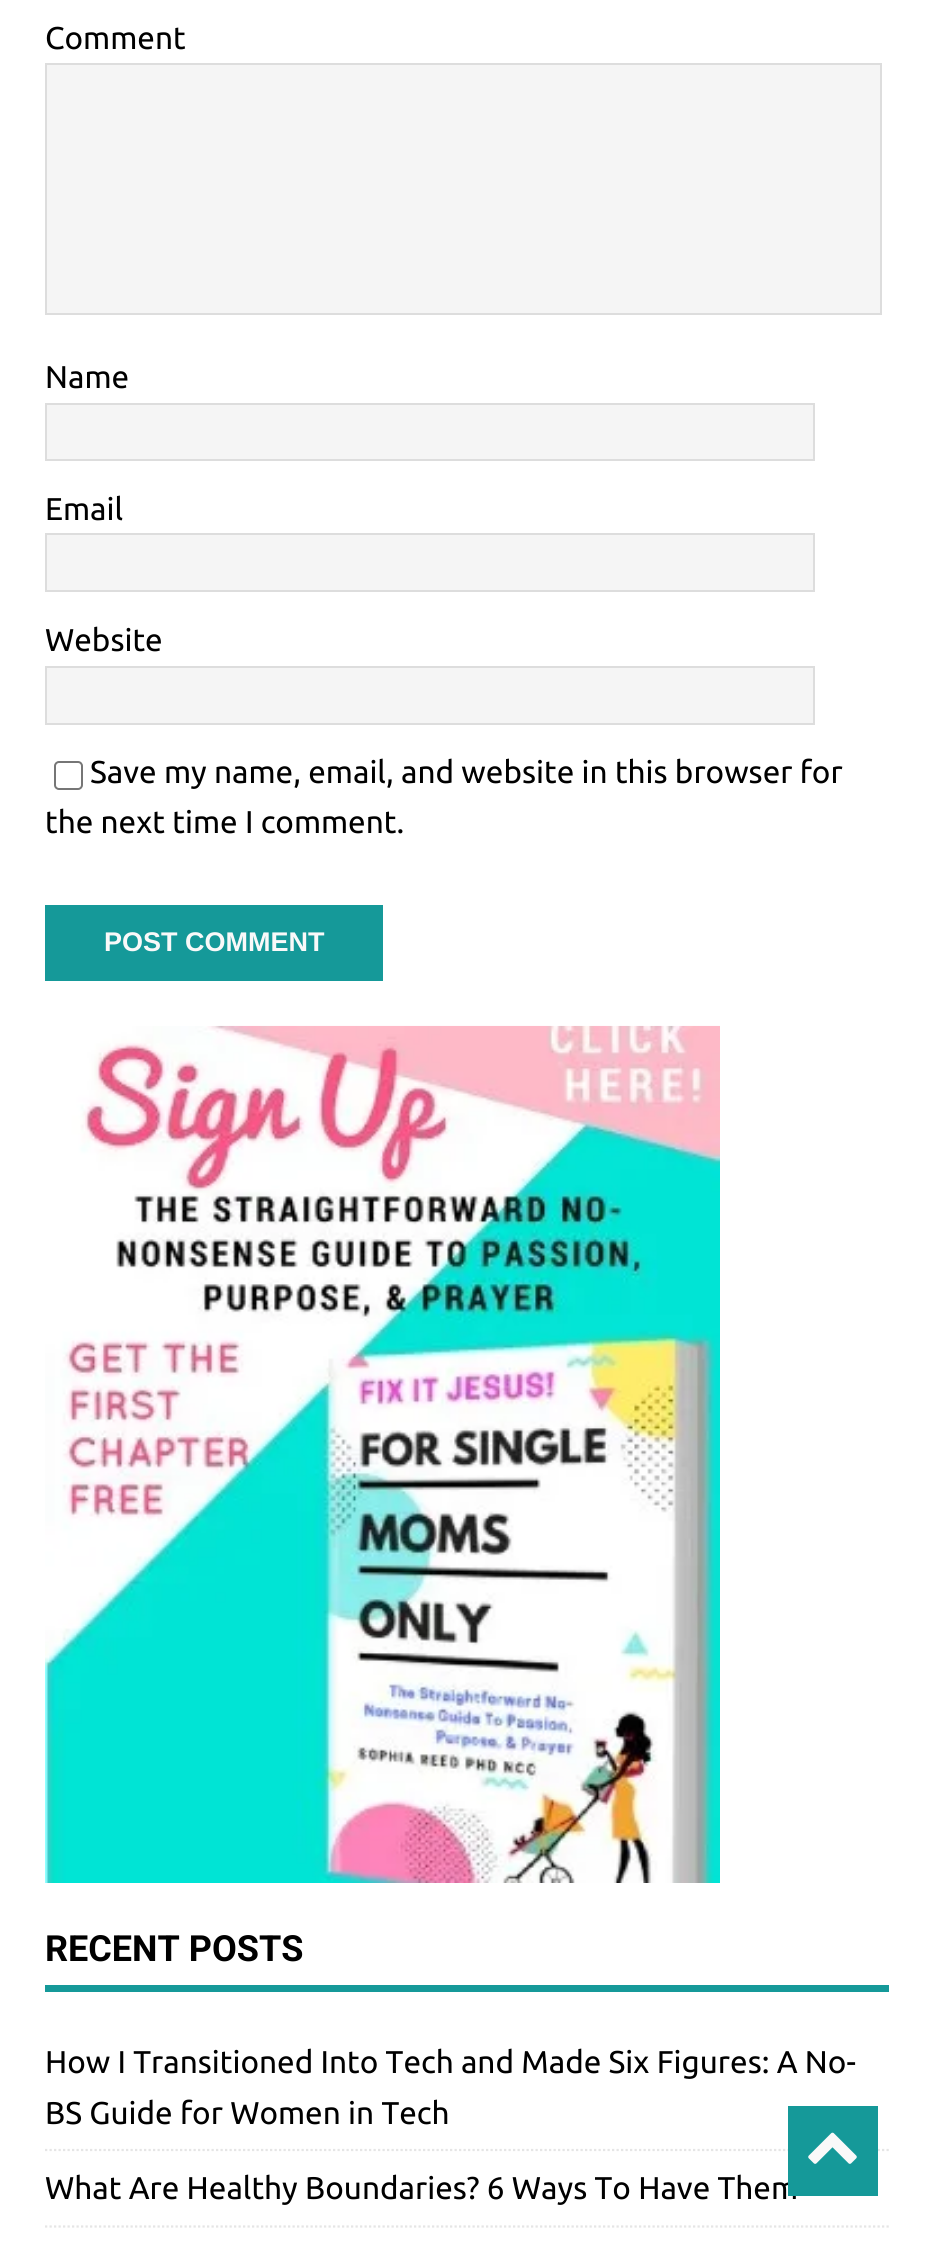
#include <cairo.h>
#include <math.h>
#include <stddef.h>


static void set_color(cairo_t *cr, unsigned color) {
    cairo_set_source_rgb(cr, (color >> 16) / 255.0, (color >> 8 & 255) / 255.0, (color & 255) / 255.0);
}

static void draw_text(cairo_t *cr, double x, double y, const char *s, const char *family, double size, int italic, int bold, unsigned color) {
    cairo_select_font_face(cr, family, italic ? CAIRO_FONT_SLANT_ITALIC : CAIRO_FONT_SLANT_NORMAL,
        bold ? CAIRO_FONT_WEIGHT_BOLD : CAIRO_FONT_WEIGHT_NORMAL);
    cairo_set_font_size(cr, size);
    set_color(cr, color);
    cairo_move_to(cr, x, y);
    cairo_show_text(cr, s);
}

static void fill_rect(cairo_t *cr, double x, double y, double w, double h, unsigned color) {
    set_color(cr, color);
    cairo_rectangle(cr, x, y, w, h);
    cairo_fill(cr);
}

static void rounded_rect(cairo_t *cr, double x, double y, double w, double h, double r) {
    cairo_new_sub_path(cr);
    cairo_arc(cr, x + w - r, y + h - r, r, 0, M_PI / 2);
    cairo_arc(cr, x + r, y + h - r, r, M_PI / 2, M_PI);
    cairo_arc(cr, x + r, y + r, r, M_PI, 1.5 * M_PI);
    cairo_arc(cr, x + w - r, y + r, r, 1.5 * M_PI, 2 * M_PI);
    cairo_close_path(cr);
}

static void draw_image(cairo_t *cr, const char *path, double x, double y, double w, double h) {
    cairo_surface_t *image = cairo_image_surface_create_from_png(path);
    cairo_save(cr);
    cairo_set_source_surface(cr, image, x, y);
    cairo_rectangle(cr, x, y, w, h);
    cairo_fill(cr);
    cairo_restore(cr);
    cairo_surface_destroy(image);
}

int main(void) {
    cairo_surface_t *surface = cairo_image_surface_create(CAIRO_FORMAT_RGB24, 932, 2252);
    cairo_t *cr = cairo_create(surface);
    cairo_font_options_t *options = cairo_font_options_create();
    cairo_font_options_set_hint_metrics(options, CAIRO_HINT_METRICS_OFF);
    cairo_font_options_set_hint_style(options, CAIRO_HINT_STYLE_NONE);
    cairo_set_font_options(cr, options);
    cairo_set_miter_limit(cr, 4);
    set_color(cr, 0xFFFFFF);
    cairo_paint(cr);
    draw_text(cr, 45, 49, "Comment", "Ubuntu", 31.5, 0, 0, 0x000000);
    set_color(cr, 0xF5F5F5);
    cairo_rectangle(cr, 46, 64, 835, 250);
    cairo_fill_preserve(cr);
    set_color(cr, 0xDDDDDD);
    cairo_stroke(cr);
    draw_text(cr, 45, 388, "Name", "Ubuntu", 31.5, 0, 0, 0x000000);
    set_color(cr, 0xF5F5F5);
    cairo_rectangle(cr, 46, 404, 768, 56);
    cairo_fill_preserve(cr);
    set_color(cr, 0xDDDDDD);
    cairo_stroke(cr);
    draw_text(cr, 45, 520, "Email", "Ubuntu", 31.5, 0, 0, 0x000000);
    set_color(cr, 0xF5F5F5);
    cairo_rectangle(cr, 46, 534, 768, 57);
    cairo_fill_preserve(cr);
    set_color(cr, 0xDDDDDD);
    cairo_stroke(cr);
    draw_text(cr, 45, 651, "Website", "Ubuntu", 31.5, 0, 0, 0x000000);
    set_color(cr, 0xF5F5F5);
    cairo_rectangle(cr, 46, 667, 768, 57);
    cairo_fill_preserve(cr);
    set_color(cr, 0xDDDDDD);
    cairo_stroke(cr);
    rounded_rect(cr, 55, 762, 27, 27, 4);
    set_color(cr, 0x767676);
    cairo_stroke(cr);
    draw_text(cr, 90, 783, "Save my name, email, and website in this browser for", "Ubuntu", 31.5, 0, 0, 0x000000);
    draw_text(cr, 45, 833, "the next time I comment.", "Ubuntu", 31.5, 0, 0, 0x000000);
    fill_rect(cr, 45, 905, 338, 76, 0x159999);
    draw_text(cr, 104, 951, "POST COMMENT", "Liberation Sans", 27, 0, 1, 0xF9F9F9);
    draw_image(cr, "assets/img1.png", 45, 1025, 675, 858);
    fill_rect(cr, 45, 1985, 844, 7, 0x159999);
    draw_text(cr, 45, 1961, "RECENT POSTS", "Roboto", 36, 0, 1, 0x000000);
    cairo_new_path(cr);
    cairo_move_to(cr, 45, 2150);
    cairo_line_to(cr, 889, 2150);
    set_color(cr, 0xE5E5E5);
    cairo_set_line_width(cr, 2.2);
    cairo_set_dash(cr, (double[]){2.25, 2.25}, 2, 0);
    cairo_stroke(cr);
    draw_text(cr, 45, 2073, "How I Transitioned Into Tech and Made Six Figures: A No-", "Ubuntu", 31.5, 0, 0, 0x000000);
    draw_text(cr, 45, 2124, "BS Guide for Women in Tech", "Ubuntu", 31.5, 0, 0, 0x000000);
    cairo_new_path(cr);
    cairo_move_to(cr, 45, 2226.5);
    cairo_line_to(cr, 889, 2226.5);
    set_color(cr, 0xE5E5E5);
    cairo_stroke(cr);
    draw_text(cr, 45, 2199, "What Are Healthy Boundaries? 6 Ways To Have Them", "Ubuntu", 31.5, 0, 0, 0x000000);
    fill_rect(cr, 788, 2106, 90, 90, 0x159999);
    draw_image(cr, "assets/img2.png", 808, 2132, 49, 32);
    cairo_surface_write_to_png(surface, "output.png");
    cairo_font_options_destroy(options);
    cairo_destroy(cr);
    cairo_surface_destroy(surface);
    return 0;
}
